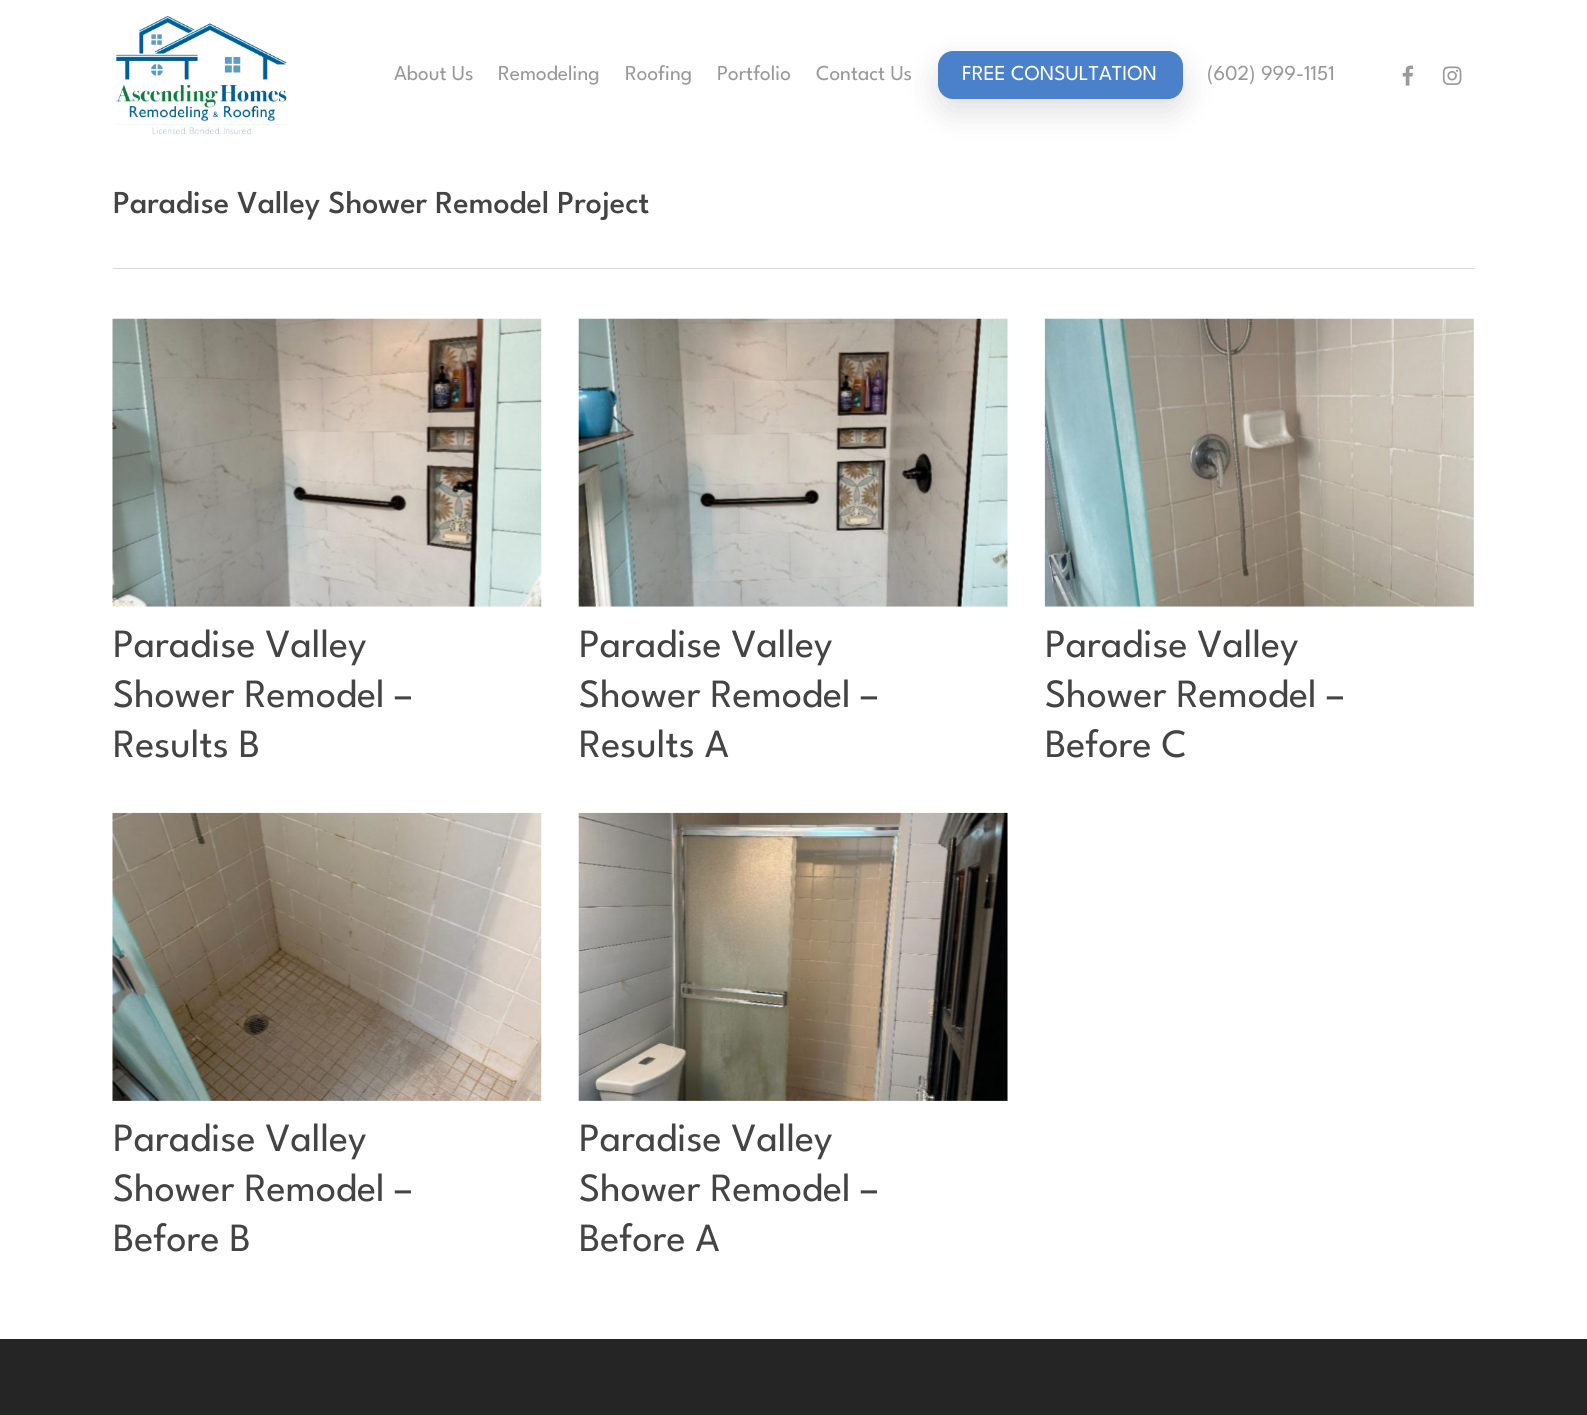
#include <cairo.h>
#include <math.h>
#include <stddef.h>


static void set_color(cairo_t *cr, unsigned color) {
    cairo_set_source_rgb(cr, (color >> 16) / 255.0, (color >> 8 & 255) / 255.0, (color & 255) / 255.0);
}

static void draw_text(cairo_t *cr, double x, double y, const char *s, const char *family, double size, int italic, int bold, unsigned color) {
    cairo_select_font_face(cr, family, italic ? CAIRO_FONT_SLANT_ITALIC : CAIRO_FONT_SLANT_NORMAL,
        bold ? CAIRO_FONT_WEIGHT_BOLD : CAIRO_FONT_WEIGHT_NORMAL);
    cairo_set_font_size(cr, size);
    set_color(cr, color);
    cairo_move_to(cr, x, y);
    cairo_show_text(cr, s);
}

static void fill_rect(cairo_t *cr, double x, double y, double w, double h, unsigned color) {
    set_color(cr, color);
    cairo_rectangle(cr, x, y, w, h);
    cairo_fill(cr);
}

static void rounded_rect(cairo_t *cr, double x, double y, double w, double h, double r) {
    cairo_new_sub_path(cr);
    cairo_arc(cr, x + w - r, y + h - r, r, 0, M_PI / 2);
    cairo_arc(cr, x + r, y + h - r, r, M_PI / 2, M_PI);
    cairo_arc(cr, x + r, y + r, r, M_PI, 1.5 * M_PI);
    cairo_arc(cr, x + w - r, y + r, r, 1.5 * M_PI, 2 * M_PI);
    cairo_close_path(cr);
}

static void draw_shadow(cairo_t *cr, double x, double y, double w, double h, double r, double blur, double alpha) {
    cairo_push_group_with_content(cr, CAIRO_CONTENT_ALPHA);
    cairo_set_operator(cr, CAIRO_OPERATOR_SOURCE);
    for (int i = 15; i >= -15 && fmin(w, h) + blur * i / 3 > 0; i -= 2) {
        double e = blur * i / 6;
        cairo_set_source_rgba(cr, 0, 0, 0, alpha * erfc((i - 1) / 8.5) / 2);
        rounded_rect(cr, x - e, y - e, w + 2 * e, h + 2 * e, fmax(0, fmin(r + e + blur * .6, fmin(w, h) / 2 + e)));
        cairo_fill(cr);
    }
    cairo_pattern_t *soft = cairo_pop_group(cr);
    cairo_mask(cr, soft);
    cairo_pattern_destroy(soft);
}

static void draw_image(cairo_t *cr, const char *path, double x, double y, double w, double h) {
    cairo_surface_t *image = cairo_image_surface_create_from_png(path);
    cairo_save(cr);
    cairo_set_source_surface(cr, image, x, y);
    cairo_rectangle(cr, x, y, w, h);
    cairo_fill(cr);
    cairo_restore(cr);
    cairo_surface_destroy(image);
}

int main(void) {
    cairo_surface_t *surface = cairo_image_surface_create(CAIRO_FORMAT_RGB24, 1587, 1415);
    cairo_t *cr = cairo_create(surface);
    cairo_font_options_t *options = cairo_font_options_create();
    cairo_font_options_set_hint_metrics(options, CAIRO_HINT_METRICS_OFF);
    cairo_font_options_set_hint_style(options, CAIRO_HINT_STYLE_NONE);
    cairo_set_font_options(cr, options);
    cairo_set_miter_limit(cr, 4);
    set_color(cr, 0xFFFFFF);
    cairo_paint(cr);
    draw_image(cr, "assets/img1.png", 116, 16, 171, 119);
    draw_text(cr, 394, 80, "About Us", "League Spartan", 21.25, 0, 0, 0x999999);
    draw_text(cr, 498, 80, "Remodeling", "League Spartan", 21.25, 0, 0, 0x999999);
    draw_text(cr, 625, 80, "Roofing", "League Spartan", 21.25, 0, 0, 0x999999);
    draw_text(cr, 717, 80, "Portfolio", "League Spartan", 21.25, 0, 0, 0x999999);
    draw_text(cr, 816, 80, "Contact Us", "League Spartan", 21.25, 0, 0, 0x999999);
    set_color(cr, 0x000000);
    draw_shadow(cr, 938, 64, 245, 47, 15, 15.5, 0.13);
    set_color(cr, 0x4B80CA);
    rounded_rect(cr, 938, 51, 245, 48, 15);
    cairo_fill(cr);
    draw_text(cr, 962, 80, "FREE CONSULTATION", "League Spartan", 21.25, 0, 0, 0xFFFFFF);
    draw_text(cr, 1207, 80, "(602) 999-1151", "League Spartan", 21.25, 0, 0, 0x999999);
    draw_image(cr, "assets/img2.png", 1402, 65, 12, 21);
    draw_image(cr, "assets/img3.png", 1442, 66, 20, 19);
    fill_rect(cr, 113, 268, 1362, 1, 0xD9D9D9);
    draw_text(cr, 113, 213, "Paradise Valley Shower Remodel Project", "League Spartan Medium", 31.9, 0, 0, 0x444444);
    draw_image(cr, "assets/img4.png", 112, 318, 430, 289);
    draw_text(cr, 113, 657, "Paradise Valley", "League Spartan", 40, 0, 0, 0x444444);
    draw_text(cr, 113, 707, "Shower Remodel –", "League Spartan", 40, 0, 0, 0x444444);
    draw_text(cr, 113, 757, "Results B", "League Spartan", 40, 0, 0, 0x444444);
    draw_image(cr, "assets/img5.png", 578, 318, 430, 289);
    draw_text(cr, 579, 657, "Paradise Valley", "League Spartan", 40, 0, 0, 0x444444);
    draw_text(cr, 579, 707, "Shower Remodel –", "League Spartan", 40, 0, 0, 0x444444);
    draw_text(cr, 579, 757, "Results A", "League Spartan", 40, 0, 0, 0x444444);
    draw_image(cr, "assets/img6.png", 1044, 318, 430, 289);
    draw_text(cr, 1045, 657, "Paradise Valley", "League Spartan", 40, 0, 0, 0x444444);
    draw_text(cr, 1045, 707, "Shower Remodel –", "League Spartan", 40, 0, 0, 0x444444);
    draw_text(cr, 1045, 757, "Before C", "League Spartan", 40, 0, 0, 0x444444);
    draw_image(cr, "assets/img7.png", 112, 812, 430, 289);
    draw_text(cr, 113, 1151, "Paradise Valley", "League Spartan", 40, 0, 0, 0x444444);
    draw_text(cr, 113, 1201, "Shower Remodel –", "League Spartan", 40, 0, 0, 0x444444);
    draw_text(cr, 113, 1251, "Before B", "League Spartan", 40, 0, 0, 0x444444);
    draw_image(cr, "assets/img8.png", 578, 812, 430, 289);
    draw_text(cr, 579, 1151, "Paradise Valley", "League Spartan", 40, 0, 0, 0x444444);
    draw_text(cr, 579, 1201, "Shower Remodel –", "League Spartan", 40, 0, 0, 0x444444);
    draw_text(cr, 579, 1251, "Before A", "League Spartan", 40, 0, 0, 0x444444);
    fill_rect(cr, 0, 1339, 1587, 76, 0x252525);
    cairo_surface_write_to_png(surface, "output.png");
    cairo_font_options_destroy(options);
    cairo_destroy(cr);
    cairo_surface_destroy(surface);
    return 0;
}
